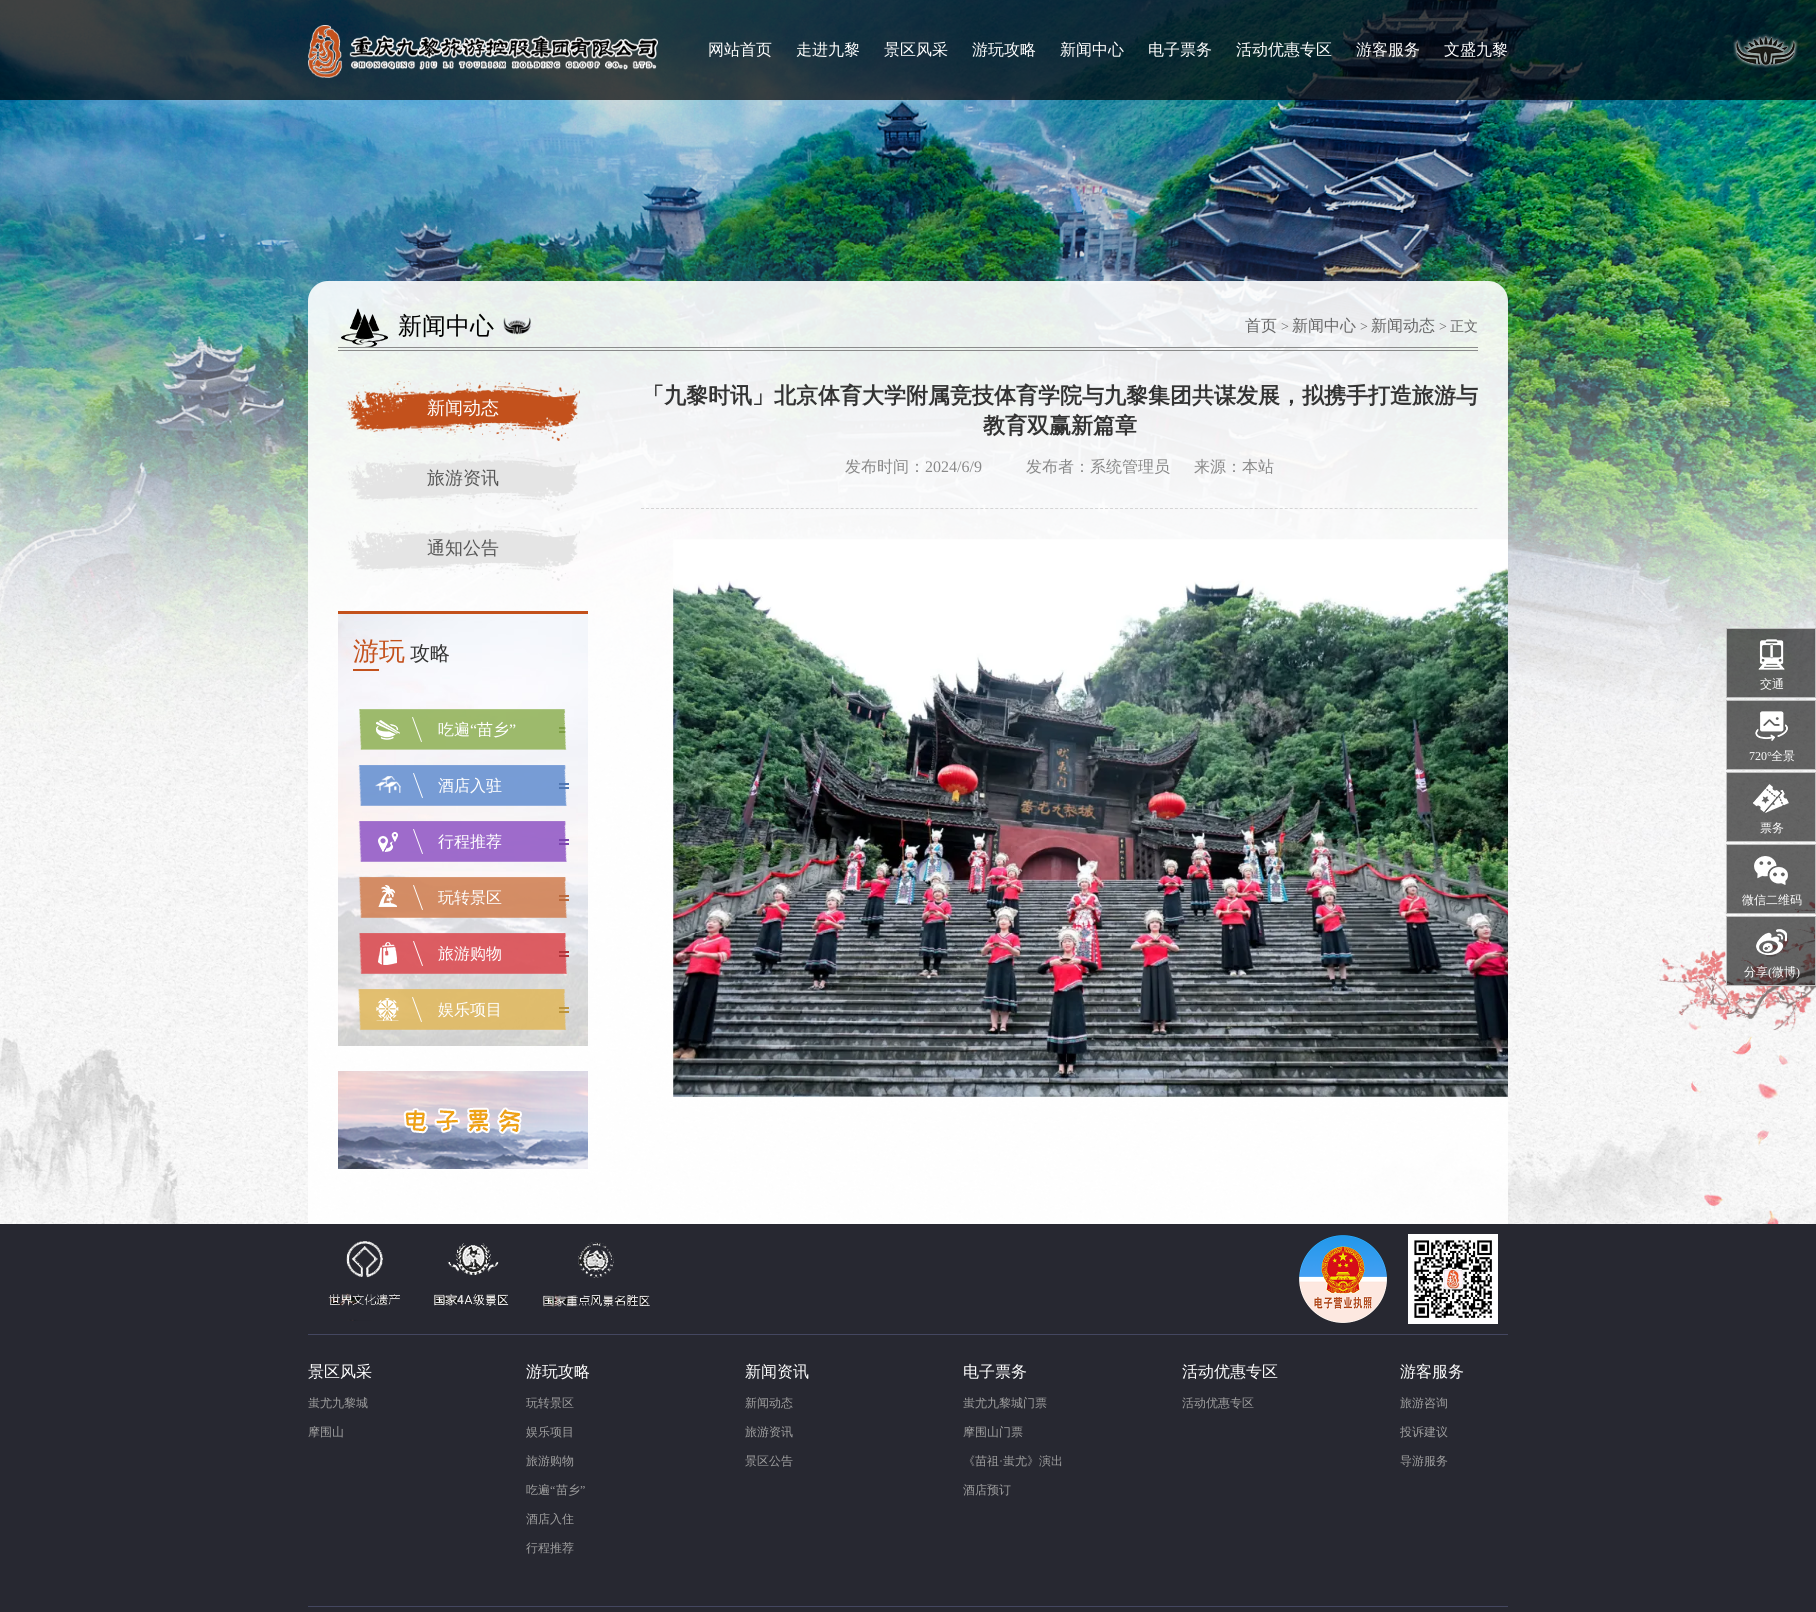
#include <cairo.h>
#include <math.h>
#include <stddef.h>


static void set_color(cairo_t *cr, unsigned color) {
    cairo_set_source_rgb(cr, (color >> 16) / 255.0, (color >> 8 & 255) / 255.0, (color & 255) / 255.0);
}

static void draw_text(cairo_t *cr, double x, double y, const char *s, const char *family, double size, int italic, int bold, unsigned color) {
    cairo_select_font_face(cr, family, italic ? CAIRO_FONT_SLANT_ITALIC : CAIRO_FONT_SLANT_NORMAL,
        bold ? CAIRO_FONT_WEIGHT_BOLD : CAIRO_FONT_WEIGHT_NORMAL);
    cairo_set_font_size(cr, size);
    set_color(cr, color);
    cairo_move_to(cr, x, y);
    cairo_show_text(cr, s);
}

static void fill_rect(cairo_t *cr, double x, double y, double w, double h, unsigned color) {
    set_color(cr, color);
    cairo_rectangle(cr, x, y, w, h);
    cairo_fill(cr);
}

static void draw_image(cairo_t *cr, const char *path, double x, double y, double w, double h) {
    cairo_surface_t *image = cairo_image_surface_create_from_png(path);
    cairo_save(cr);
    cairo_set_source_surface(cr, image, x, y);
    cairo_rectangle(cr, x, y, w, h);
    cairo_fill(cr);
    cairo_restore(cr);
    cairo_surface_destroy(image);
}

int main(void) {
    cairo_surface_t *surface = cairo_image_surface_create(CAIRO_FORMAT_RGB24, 1816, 1612);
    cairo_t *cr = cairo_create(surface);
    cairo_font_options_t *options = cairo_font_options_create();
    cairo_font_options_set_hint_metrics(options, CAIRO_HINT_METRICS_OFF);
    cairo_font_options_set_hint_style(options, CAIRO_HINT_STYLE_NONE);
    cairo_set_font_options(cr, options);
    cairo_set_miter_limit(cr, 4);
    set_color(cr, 0xFFFFFF);
    cairo_paint(cr);
    draw_image(cr, "assets/img3.png", 0, 0, 1816, 1224);
    cairo_set_source_rgba(cr, 0, 0, 0, 0.7);
    cairo_rectangle(cr, 0, 0, 1816, 100);
    cairo_fill(cr);
    draw_image(cr, "assets/img1.png", 1733, 34, 65, 34);
    draw_image(cr, "assets/img2.png", 308, 25, 350, 53);
    draw_text(cr, 708, 55, "网站首页", "WenQuanYi Zen Hei Medium", 16, 0, 0, 0xFFFFFF);
    draw_text(cr, 796, 55, "走进九黎", "WenQuanYi Zen Hei Medium", 16, 0, 0, 0xFFFFFF);
    draw_text(cr, 884, 55, "景区风采", "WenQuanYi Zen Hei Medium", 16, 0, 0, 0xFFFFFF);
    draw_text(cr, 972, 55, "游玩攻略", "WenQuanYi Zen Hei Medium", 16, 0, 0, 0xFFFFFF);
    draw_text(cr, 1060, 55, "新闻中心", "WenQuanYi Zen Hei Medium", 16, 0, 0, 0xFFFFFF);
    draw_text(cr, 1148, 55, "电子票务", "WenQuanYi Zen Hei Medium", 16, 0, 0, 0xFFFFFF);
    draw_text(cr, 1236, 55, "活动优惠专区", "WenQuanYi Zen Hei Medium", 16, 0, 0, 0xFFFFFF);
    draw_text(cr, 1356, 55, "游客服务", "WenQuanYi Zen Hei Medium", 16, 0, 0, 0xFFFFFF);
    draw_text(cr, 1444, 55, "文盛九黎", "WenQuanYi Zen Hei Medium", 16, 0, 0, 0xFFFFFF);
    cairo_set_source_rgba(cr, 1, 1, 1, 0.9);
    cairo_new_path(cr);
    cairo_move_to(cr, 328, 281);
    cairo_line_to(cr, 1488, 281);
    cairo_curve_to(cr, 1499, 281, 1508, 290, 1508, 301);
    cairo_line_to(cr, 1508, 1224);
    cairo_line_to(cr, 308, 1224);
    cairo_line_to(cr, 308, 301);
    cairo_curve_to(cr, 308, 290, 317, 281, 328, 281);
    cairo_close_path(cr);
    cairo_fill(cr);
    draw_image(cr, "assets/img4.png", 338, 308, 1140, 43);
    draw_text(cr, 398, 334, "新闻中心", "WenQuanYi Zen Hei Medium", 24, 0, 0, 0x000000);
    draw_image(cr, "assets/img5.png", 503, 317, 28, 18);
    draw_text(cr, 1245, 331, "首页", "WenQuanYi Zen Hei Medium", 16, 0, 0, 0x666666);
    draw_text(cr, 1281, 331, ">", "Liberation Serif", 14, 0, 0, 0x666666);
    draw_text(cr, 1292, 331, "新闻中心", "WenQuanYi Zen Hei Medium", 16, 0, 0, 0x666666);
    draw_text(cr, 1360, 331, ">", "Liberation Serif", 14, 0, 0, 0x666666);
    draw_text(cr, 1371, 331, "新闻动态", "WenQuanYi Zen Hei Medium", 16, 0, 0, 0x666666);
    draw_text(cr, 1439, 331, ">", "Liberation Serif", 14, 0, 0, 0x666666);
    draw_text(cr, 1450, 331, "正文", "WenQuanYi Zen Hei Medium", 14, 0, 0, 0x666666);
    draw_image(cr, "assets/img6.png", 346, 381, 234, 60);
    draw_text(cr, 427, 414, "新闻动态", "WenQuanYi Zen Hei Medium", 18, 0, 0, 0xFFFFFF);
    draw_image(cr, "assets/img7.png", 348, 451, 232, 60);
    draw_text(cr, 427, 484, "旅游资讯", "WenQuanYi Zen Hei Medium", 18, 0, 0, 0x555555);
    draw_image(cr, "assets/img8.png", 348, 521, 232, 60);
    draw_text(cr, 427, 554, "通知公告", "WenQuanYi Zen Hei Medium", 18, 0, 0, 0x555555);
    draw_image(cr, "assets/img9.png", 338, 614, 250, 432);
    fill_rect(cr, 338, 611, 250, 3, 0xC3511C);
    draw_text(cr, 353, 660, "游玩", "WenQuanYi Zen Hei Medium", 26, 0, 0, 0xC3511C);
    fill_rect(cr, 353, 669, 26, 2, 0xC3511C);
    draw_text(cr, 410, 660, "攻略", "WenQuanYi Zen Hei Medium", 20, 0, 0, 0x333333);
    draw_image(cr, "assets/img10.png", 359, 709, 208, 41);
    draw_text(cr, 438, 735, "吃遍", "WenQuanYi Zen Hei Medium", 16, 0, 0, 0xFFFFFF);
    draw_text(cr, 470, 735, "“", "Liberation Serif", 16, 0, 0, 0xFFFFFF);
    draw_text(cr, 477, 735, "苗乡", "WenQuanYi Zen Hei Medium", 16, 0, 0, 0xFFFFFF);
    draw_text(cr, 509, 735, "”", "Liberation Serif", 16, 0, 0, 0xFFFFFF);
    draw_image(cr, "assets/img11.png", 358, 765, 211, 41);
    draw_text(cr, 438, 791, "酒店入驻", "WenQuanYi Zen Hei Medium", 16, 0, 0, 0xFFFFFF);
    draw_image(cr, "assets/img12.png", 358, 821, 211, 41);
    draw_text(cr, 438, 847, "行程推荐", "WenQuanYi Zen Hei Medium", 16, 0, 0, 0xFFFFFF);
    draw_image(cr, "assets/img13.png", 358, 877, 211, 41);
    draw_text(cr, 438, 903, "玩转景区", "WenQuanYi Zen Hei Medium", 16, 0, 0, 0xFFFFFF);
    draw_image(cr, "assets/img14.png", 359, 933, 210, 41);
    draw_text(cr, 438, 959, "旅游购物", "WenQuanYi Zen Hei Medium", 16, 0, 0, 0xFFFFFF);
    draw_image(cr, "assets/img15.png", 358, 989, 211, 41);
    draw_text(cr, 438, 1015, "娱乐项目", "WenQuanYi Zen Hei Medium", 16, 0, 0, 0xFFFFFF);
    draw_image(cr, "assets/img16.png", 338, 1071, 250, 98);
    cairo_new_path(cr);
    cairo_move_to(cr, 641, 508.5);
    cairo_line_to(cr, 1478, 508.5);
    set_color(cr, 0xD5D5D5);
    cairo_set_line_width(cr, 1);
    cairo_set_dash(cr, (double[]){3, 1.99}, 2, 0);
    cairo_stroke(cr);
    draw_text(cr, 642, 403, "「九黎时讯」北京体育大学附属竞技体育学院与九黎集团共谋发展，拟携手打造旅游与", "WenQuanYi Zen Hei", 22, 0, 1, 0x333333);
    draw_text(cr, 983, 433, "教育双赢新篇章", "WenQuanYi Zen Hei", 22, 0, 1, 0x333333);
    draw_text(cr, 845, 472, "发布时间：", "WenQuanYi Zen Hei Medium", 16, 0, 0, 0x888888);
    draw_text(cr, 925, 472, "2024/6/9", "Liberation Serif", 16, 0, 0, 0x888888);
    draw_text(cr, 1026, 472, "发布者：系统管理员", "WenQuanYi Zen Hei Medium", 16, 0, 0, 0x888888);
    draw_text(cr, 1194, 472, "来源：本站", "WenQuanYi Zen Hei Medium", 16, 0, 0, 0x888888);
    draw_image(cr, "assets/img17.png", 673, 539, 835, 558);
    cairo_set_source_rgba(cr, 0, 0, 0, 0.6);
    cairo_rectangle(cr, 1726.5, 628.5, 89, 69);
    cairo_fill_preserve(cr);
    set_color(cr, 0xBEBEBE);
    cairo_set_dash(cr, NULL, 0, 0);
    cairo_stroke(cr);
    draw_image(cr, "assets/img18.png", 1758, 639, 27, 31);
    draw_text(cr, 1760, 688, "交通", "WenQuanYi Zen Hei Medium", 12, 0, 0, 0xFFFFFF);
    cairo_set_source_rgba(cr, 0, 0, 0, 0.6);
    cairo_rectangle(cr, 1726.5, 700.5, 89, 69);
    cairo_fill_preserve(cr);
    set_color(cr, 0xBEBEBE);
    cairo_stroke(cr);
    draw_image(cr, "assets/img19.png", 1755, 711, 33, 30);
    draw_text(cr, 1749, 760, "720°", "Liberation Serif", 12, 0, 0, 0xFFFFFF);
    draw_text(cr, 1771, 760, "全景", "WenQuanYi Zen Hei Medium", 12, 0, 0, 0xFFFFFF);
    cairo_set_source_rgba(cr, 0, 0, 0, 0.6);
    cairo_rectangle(cr, 1726.5, 772.5, 89, 69);
    cairo_fill_preserve(cr);
    set_color(cr, 0xBEBEBE);
    cairo_stroke(cr);
    draw_image(cr, "assets/img20.png", 1753, 784, 36, 29);
    draw_text(cr, 1760, 832, "票务", "WenQuanYi Zen Hei Medium", 12, 0, 0, 0xFFFFFF);
    cairo_set_source_rgba(cr, 0, 0, 0, 0.6);
    cairo_rectangle(cr, 1726.5, 844.5, 89, 69);
    cairo_fill_preserve(cr);
    set_color(cr, 0xBEBEBE);
    cairo_stroke(cr);
    draw_image(cr, "assets/img21.png", 1754, 856, 34, 29);
    draw_text(cr, 1742, 904, "微信二维码", "WenQuanYi Zen Hei Medium", 12, 0, 0, 0xFFFFFF);
    cairo_set_source_rgba(cr, 0, 0, 0, 0.6);
    cairo_rectangle(cr, 1726.5, 916.5, 89, 69);
    cairo_fill_preserve(cr);
    set_color(cr, 0xBEBEBE);
    cairo_stroke(cr);
    draw_image(cr, "assets/img22.png", 1756, 929, 31, 26);
    draw_text(cr, 1744, 976, "分享", "WenQuanYi Zen Hei Medium", 12, 0, 0, 0xFFFFFF);
    draw_text(cr, 1768, 976, "(", "Liberation Serif", 12, 0, 0, 0xFFFFFF);
    draw_text(cr, 1772, 976, "微博", "WenQuanYi Zen Hei Medium", 12, 0, 0, 0xFFFFFF);
    draw_text(cr, 1796, 976, ")", "Liberation Serif", 12, 0, 0, 0xFFFFFF);
    fill_rect(cr, 0, 1224, 1816, 388, 0x272831);
    fill_rect(cr, 308, 1334, 1200, 1, 0x444760);
    draw_image(cr, "assets/img23.png", 328, 1241, 72, 80);
    draw_image(cr, "assets/img24.png", 434, 1243, 75, 63);
    draw_image(cr, "assets/img25.png", 543, 1242, 107, 66);
    draw_image(cr, "assets/img26.png", 1299, 1235, 88, 89);
    draw_image(cr, "assets/img27.png", 1408, 1234, 90, 90);
    fill_rect(cr, 308, 1606, 1200, 1, 0x444760);
    draw_text(cr, 308, 1377, "景区风采", "WenQuanYi Zen Hei Medium", 16, 0, 0, 0xFFFFFF);
    draw_text(cr, 308, 1407, "蚩尤九黎城", "WenQuanYi Zen Hei Medium", 12, 0, 0, 0x9F9F9F);
    draw_text(cr, 308, 1436, "摩围山", "WenQuanYi Zen Hei Medium", 12, 0, 0, 0x9F9F9F);
    draw_text(cr, 526, 1377, "游玩攻略", "WenQuanYi Zen Hei Medium", 16, 0, 0, 0xFFFFFF);
    draw_text(cr, 526, 1407, "玩转景区", "WenQuanYi Zen Hei Medium", 12, 0, 0, 0x9F9F9F);
    draw_text(cr, 526, 1436, "娱乐项目", "WenQuanYi Zen Hei Medium", 12, 0, 0, 0x9F9F9F);
    draw_text(cr, 526, 1465, "旅游购物", "WenQuanYi Zen Hei Medium", 12, 0, 0, 0x9F9F9F);
    draw_text(cr, 526, 1494, "吃遍", "WenQuanYi Zen Hei Medium", 12, 0, 0, 0x9F9F9F);
    draw_text(cr, 550, 1494, "“", "Liberation Serif", 12, 0, 0, 0x9F9F9F);
    draw_text(cr, 556, 1494, "苗乡", "WenQuanYi Zen Hei Medium", 12, 0, 0, 0x9F9F9F);
    draw_text(cr, 580, 1494, "”", "Liberation Serif", 12, 0, 0, 0x9F9F9F);
    draw_text(cr, 526, 1523, "酒店入住", "WenQuanYi Zen Hei Medium", 12, 0, 0, 0x9F9F9F);
    draw_text(cr, 526, 1552, "行程推荐", "WenQuanYi Zen Hei Medium", 12, 0, 0, 0x9F9F9F);
    draw_text(cr, 745, 1377, "新闻资讯", "WenQuanYi Zen Hei Medium", 16, 0, 0, 0xFFFFFF);
    draw_text(cr, 745, 1407, "新闻动态", "WenQuanYi Zen Hei Medium", 12, 0, 0, 0x9F9F9F);
    draw_text(cr, 745, 1436, "旅游资讯", "WenQuanYi Zen Hei Medium", 12, 0, 0, 0x9F9F9F);
    draw_text(cr, 745, 1465, "景区公告", "WenQuanYi Zen Hei Medium", 12, 0, 0, 0x9F9F9F);
    draw_text(cr, 963, 1377, "电子票务", "WenQuanYi Zen Hei Medium", 16, 0, 0, 0xFFFFFF);
    draw_text(cr, 963, 1407, "蚩尤九黎城门票", "WenQuanYi Zen Hei Medium", 12, 0, 0, 0x9F9F9F);
    draw_text(cr, 963, 1436, "摩围山门票", "WenQuanYi Zen Hei Medium", 12, 0, 0, 0x9F9F9F);
    draw_text(cr, 963, 1465, "《苗祖", "WenQuanYi Zen Hei Medium", 12, 0, 0, 0x9F9F9F);
    draw_text(cr, 999, 1465, "·", "Liberation Serif", 12, 0, 0, 0x9F9F9F);
    draw_text(cr, 1003, 1465, "蚩尤》演出", "WenQuanYi Zen Hei Medium", 12, 0, 0, 0x9F9F9F);
    draw_text(cr, 963, 1494, "酒店预订", "WenQuanYi Zen Hei Medium", 12, 0, 0, 0x9F9F9F);
    draw_text(cr, 1182, 1377, "活动优惠专区", "WenQuanYi Zen Hei Medium", 16, 0, 0, 0xFFFFFF);
    draw_text(cr, 1182, 1407, "活动优惠专区", "WenQuanYi Zen Hei Medium", 12, 0, 0, 0x9F9F9F);
    draw_text(cr, 1400, 1377, "游客服务", "WenQuanYi Zen Hei Medium", 16, 0, 0, 0xFFFFFF);
    draw_text(cr, 1400, 1407, "旅游咨询", "WenQuanYi Zen Hei Medium", 12, 0, 0, 0x9F9F9F);
    draw_text(cr, 1400, 1436, "投诉建议", "WenQuanYi Zen Hei Medium", 12, 0, 0, 0x9F9F9F);
    draw_text(cr, 1400, 1465, "导游服务", "WenQuanYi Zen Hei Medium", 12, 0, 0, 0x9F9F9F);
    cairo_surface_write_to_png(surface, "output.png");
    cairo_font_options_destroy(options);
    cairo_destroy(cr);
    cairo_surface_destroy(surface);
    return 0;
}
